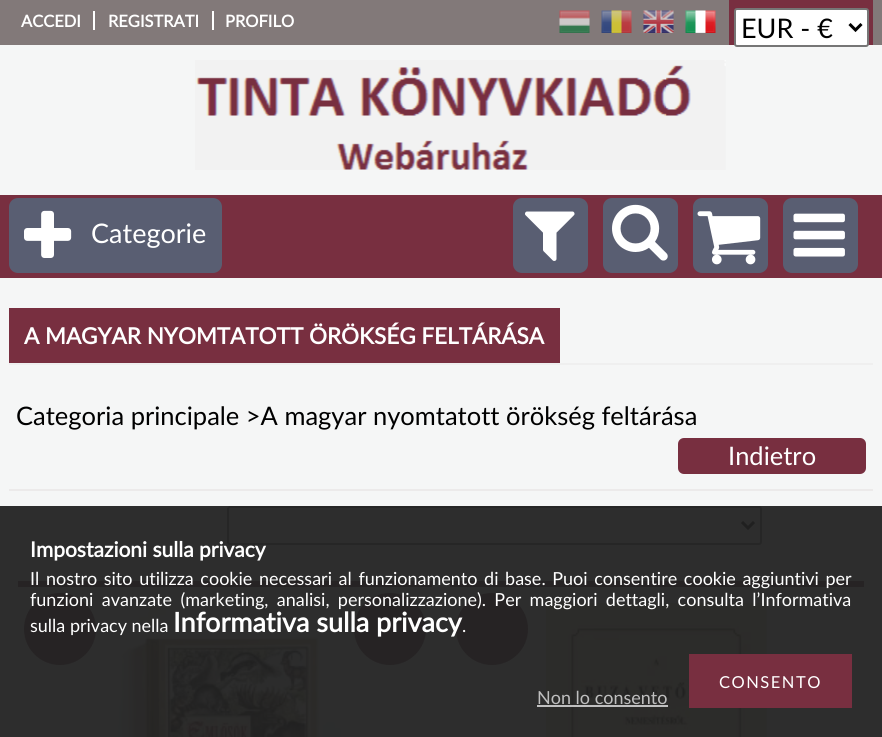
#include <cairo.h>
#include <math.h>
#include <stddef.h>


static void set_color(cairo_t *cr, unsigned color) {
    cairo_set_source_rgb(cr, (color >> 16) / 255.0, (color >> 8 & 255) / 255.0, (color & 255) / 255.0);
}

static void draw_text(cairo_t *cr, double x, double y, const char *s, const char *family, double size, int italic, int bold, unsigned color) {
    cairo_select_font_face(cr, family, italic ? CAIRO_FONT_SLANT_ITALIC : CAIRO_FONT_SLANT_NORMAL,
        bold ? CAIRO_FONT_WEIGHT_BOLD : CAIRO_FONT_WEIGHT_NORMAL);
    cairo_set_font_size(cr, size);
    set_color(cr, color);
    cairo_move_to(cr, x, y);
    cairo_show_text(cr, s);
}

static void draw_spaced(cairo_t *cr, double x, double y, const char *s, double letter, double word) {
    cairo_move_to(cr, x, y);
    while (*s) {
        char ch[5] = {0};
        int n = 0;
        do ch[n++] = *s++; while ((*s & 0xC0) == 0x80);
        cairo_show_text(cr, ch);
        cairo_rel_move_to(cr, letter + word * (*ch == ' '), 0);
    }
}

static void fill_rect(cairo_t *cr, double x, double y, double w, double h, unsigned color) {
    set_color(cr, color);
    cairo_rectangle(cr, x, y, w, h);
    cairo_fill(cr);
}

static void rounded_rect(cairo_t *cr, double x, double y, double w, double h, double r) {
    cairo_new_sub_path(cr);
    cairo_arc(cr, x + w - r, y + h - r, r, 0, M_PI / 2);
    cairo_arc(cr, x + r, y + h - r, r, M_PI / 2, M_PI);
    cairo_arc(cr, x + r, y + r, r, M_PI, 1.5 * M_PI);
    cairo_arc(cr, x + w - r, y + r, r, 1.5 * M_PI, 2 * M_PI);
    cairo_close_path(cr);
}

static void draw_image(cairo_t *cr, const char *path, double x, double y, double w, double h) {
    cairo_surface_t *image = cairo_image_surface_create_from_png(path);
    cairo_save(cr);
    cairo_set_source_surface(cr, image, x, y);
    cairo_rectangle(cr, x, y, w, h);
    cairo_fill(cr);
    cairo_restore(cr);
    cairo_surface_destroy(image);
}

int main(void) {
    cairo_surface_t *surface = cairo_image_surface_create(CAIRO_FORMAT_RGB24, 882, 737);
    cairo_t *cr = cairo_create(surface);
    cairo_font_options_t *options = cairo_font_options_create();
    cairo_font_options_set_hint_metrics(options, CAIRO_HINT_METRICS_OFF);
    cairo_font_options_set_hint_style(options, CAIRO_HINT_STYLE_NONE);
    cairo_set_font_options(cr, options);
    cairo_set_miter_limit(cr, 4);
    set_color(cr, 0xF5F6F6);
    cairo_paint(cr);
    fill_rect(cr, 0, 506, 882, 231, 0x2D2D2D);
    fill_rect(cr, 0, 0, 882, 45, 0x827979);
    draw_text(cr, 21, 27, "ACCEDI", "Lato", 16.5, 0, 1, 0xFFFFFF);
    fill_rect(cr, 93, 11, 2, 19, 0xFFFFFF);
    draw_text(cr, 108, 27, "REGISTRATI", "Lato", 16.5, 0, 1, 0xFFFFFF);
    fill_rect(cr, 212, 11, 2, 19, 0xFFFFFF);
    draw_text(cr, 225, 27, "PROFILO", "Lato", 16.5, 0, 1, 0xFFFFFF);
    draw_image(cr, "assets/img1.png", 559, 10, 31, 23);
    draw_image(cr, "assets/img2.png", 601, 10, 31, 23);
    draw_image(cr, "assets/img3.png", 643, 10, 31, 23);
    draw_image(cr, "assets/img4.png", 685, 10, 31, 23);
    fill_rect(cr, 729, 0, 144, 45, 0x782F40);
    set_color(cr, 0xFFFFFF);
    rounded_rect(cr, 735, 9, 133, 37, 2);
    cairo_fill_preserve(cr);
    set_color(cr, 0x767676);
    cairo_stroke(cr);
    cairo_new_path(cr);
    cairo_move_to(cr, 849.5, 24);
    cairo_line_to(cr, 855.5, 30);
    cairo_line_to(cr, 861.5, 24);
    set_color(cr, 0x000000);
    cairo_set_line_width(cr, 3);
    cairo_stroke(cr);
    draw_text(cr, 741, 38, "EUR - €", "Lato", 27, 0, 0, 0x000000);
    draw_image(cr, "assets/img5.png", 195, 60, 531, 110);
    fill_rect(cr, 0, 195, 882, 83, 0x782F40);
    set_color(cr, 0x595E72);
    rounded_rect(cr, 9, 198, 213, 75, 9);
    cairo_fill(cr);
    draw_image(cr, "assets/img6.png", 24, 210, 48, 48);
    draw_text(cr, 91, 243, "Categorie", "Lato", 27, 0, 0, 0xFFFFFF);
    set_color(cr, 0x595E72);
    rounded_rect(cr, 513, 198, 75, 75, 9);
    cairo_fill(cr);
    draw_image(cr, "assets/img7.png", 525, 211, 50, 50);
    rounded_rect(cr, 603, 198, 75, 75, 9);
    cairo_fill(cr);
    draw_image(cr, "assets/img8.png", 612, 204, 56, 57);
    rounded_rect(cr, 693, 198, 75, 75, 9);
    cairo_fill(cr);
    draw_image(cr, "assets/img9.png", 697, 211, 64, 54);
    rounded_rect(cr, 783, 198, 75, 75, 9);
    cairo_fill(cr);
    draw_image(cr, "assets/img10.png", 793, 213, 52, 44);
    fill_rect(cr, 9, 363, 864, 2, 0xEFEFEF);
    fill_rect(cr, 9, 308, 551, 55, 0x782F40);
    draw_text(cr, 24, 344, "A MAGYAR NYOMTATOTT ÖRÖKSÉG FELTÁRÁSA", "Lato", 22.5, 0, 1, 0xFFFFFF);
    draw_text(cr, 16, 425, "Categoria principale >A magyar nyomtatott örökség feltárása", "Lato", 25.5, 0, 0, 0x000000);
    set_color(cr, 0x782F40);
    rounded_rect(cr, 678, 438, 188, 36, 6);
    cairo_fill(cr);
    draw_text(cr, 728, 465, "Indietro", "Lato", 25.5, 0, 0, 0xFFFFFF);
    fill_rect(cr, 9, 489, 864, 2, 0xECEAEA);
    rounded_rect(cr, 228, 507, 533, 37, 2);
    set_color(cr, 0x262626);
    cairo_set_line_width(cr, 2);
    cairo_stroke(cr);
    cairo_new_path(cr);
    cairo_move_to(cr, 742, 522);
    cairo_line_to(cr, 748, 528);
    cairo_line_to(cr, 754, 522);
    set_color(cr, 0x202020);
    cairo_set_line_width(cr, 3);
    cairo_stroke(cr);
    fill_rect(cr, 18, 581, 414, 6, 0x262324);
    draw_image(cr, "assets/img11.png", 100, 603, 274, 134);
    cairo_arc(cr, 60, 629, 36, 0, 2 * M_PI);
    cairo_fill(cr);
    cairo_arc(cr, 390, 629, 36, 0, 2 * M_PI);
    cairo_fill(cr);
    fill_rect(cr, 450, 581, 414, 6, 0x262324);
    draw_image(cr, "assets/img12.png", 546, 603, 221, 134);
    cairo_arc(cr, 492, 629, 36, 0, 2 * M_PI);
    cairo_fill(cr);
    draw_text(cr, 30, 557, "Impostazioni sulla privacy", "Lato", 21, 0, 1, 0xFFFFFF);
    cairo_select_font_face(cr, "Lato", CAIRO_FONT_SLANT_NORMAL, CAIRO_FONT_WEIGHT_NORMAL);
    cairo_set_font_size(cr, 18);
    draw_spaced(cr, 30, 585, "Il nostro sito utilizza cookie necessari al funzionamento di base. Puoi consentire cookie aggiuntivi per", 0, 2);
    draw_spaced(cr, 30, 606, "funzioni avanzate (marketing, analisi, personalizzazione). Per maggiori dettagli, consulta l’Informativa", 0, 3.75);
    draw_text(cr, 30, 632, "sulla privacy nella", "Lato", 18, 0, 0, 0xFFFFFF);
    draw_text(cr, 173, 632, "Informativa sulla privacy", "Lato", 27, 0, 1, 0xFFFFFF);
    draw_text(cr, 462, 632, ".", "Lato", 18, 0, 0, 0xFFFFFF);
    fill_rect(cr, 689, 654, 163, 54, 0x782F40);
    cairo_set_font_size(cr, 16.5);
    set_color(cr, 0xFFFFFF);
    draw_spaced(cr, 719, 688, "CONSENTO", 1.5, 0);
    draw_text(cr, 537, 704, "Non lo consento", "Lato", 18, 0, 0, 0xBFBFBF);
    cairo_set_source_rgba(cr, 1, 1, 1, 0.7);
    cairo_rectangle(cr, 537, 705, 131, 2);
    cairo_fill(cr);
    cairo_surface_write_to_png(surface, "output.png");
    cairo_font_options_destroy(options);
    cairo_destroy(cr);
    cairo_surface_destroy(surface);
    return 0;
}
